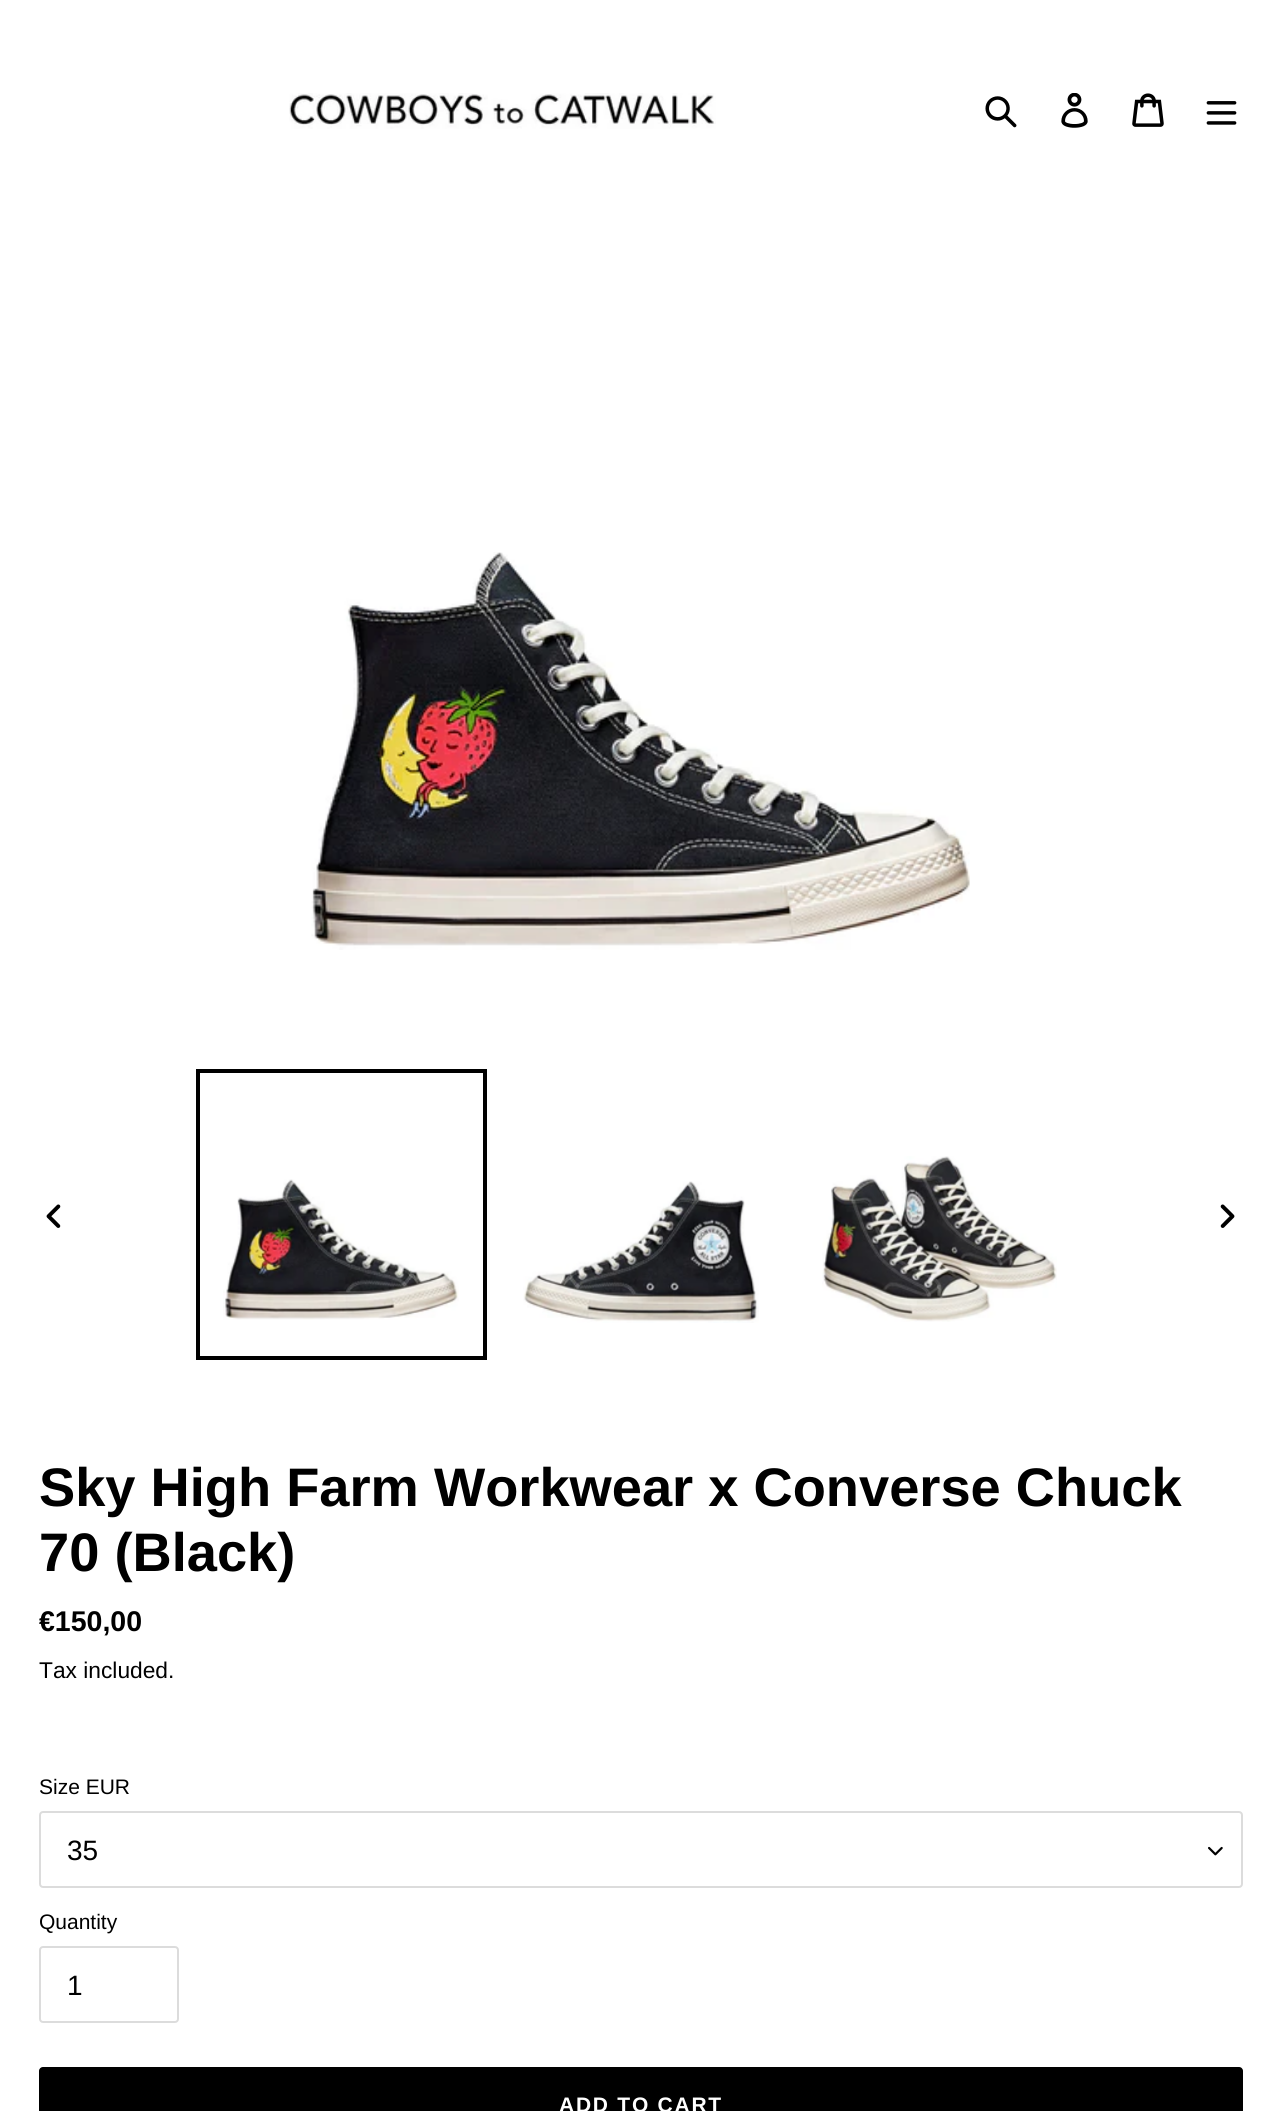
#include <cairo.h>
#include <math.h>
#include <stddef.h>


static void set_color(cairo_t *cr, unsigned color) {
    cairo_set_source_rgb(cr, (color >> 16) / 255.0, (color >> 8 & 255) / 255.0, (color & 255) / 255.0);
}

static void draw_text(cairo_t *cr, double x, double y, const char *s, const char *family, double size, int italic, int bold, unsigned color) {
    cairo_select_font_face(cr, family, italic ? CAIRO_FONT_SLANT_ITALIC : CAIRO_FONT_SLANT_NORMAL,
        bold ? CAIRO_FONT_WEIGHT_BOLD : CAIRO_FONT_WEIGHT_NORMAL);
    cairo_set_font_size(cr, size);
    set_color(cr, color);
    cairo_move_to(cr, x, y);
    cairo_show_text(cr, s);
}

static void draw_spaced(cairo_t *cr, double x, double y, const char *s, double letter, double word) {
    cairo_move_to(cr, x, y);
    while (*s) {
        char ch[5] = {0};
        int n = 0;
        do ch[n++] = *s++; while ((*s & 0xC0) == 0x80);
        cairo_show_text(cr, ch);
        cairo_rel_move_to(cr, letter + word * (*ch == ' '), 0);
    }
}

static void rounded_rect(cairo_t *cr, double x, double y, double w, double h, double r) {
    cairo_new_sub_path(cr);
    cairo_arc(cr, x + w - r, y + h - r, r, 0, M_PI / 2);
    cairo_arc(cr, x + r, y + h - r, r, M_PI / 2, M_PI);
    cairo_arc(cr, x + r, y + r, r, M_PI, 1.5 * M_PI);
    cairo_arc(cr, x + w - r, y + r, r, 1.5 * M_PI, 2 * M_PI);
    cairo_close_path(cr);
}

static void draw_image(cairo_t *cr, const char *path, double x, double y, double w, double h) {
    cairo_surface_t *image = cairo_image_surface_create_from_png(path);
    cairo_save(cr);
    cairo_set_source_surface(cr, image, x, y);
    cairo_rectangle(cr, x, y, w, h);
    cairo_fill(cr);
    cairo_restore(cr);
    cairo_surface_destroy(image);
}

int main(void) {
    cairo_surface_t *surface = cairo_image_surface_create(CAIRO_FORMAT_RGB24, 1281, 2111);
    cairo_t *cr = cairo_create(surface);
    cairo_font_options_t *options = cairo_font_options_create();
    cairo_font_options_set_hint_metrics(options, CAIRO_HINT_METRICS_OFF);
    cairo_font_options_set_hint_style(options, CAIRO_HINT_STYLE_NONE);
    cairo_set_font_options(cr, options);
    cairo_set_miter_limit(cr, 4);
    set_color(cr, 0xFFFFFF);
    cairo_paint(cr);
    draw_image(cr, "assets/img1.png", 289, 93, 427, 36);
    draw_image(cr, "assets/img2.png", 985, 96, 32, 32);
    draw_image(cr, "assets/img3.png", 1061, 93, 27, 35);
    draw_image(cr, "assets/img4.png", 1132, 93, 32, 34);
    draw_image(cr, "assets/img5.png", 1206, 101, 31, 24);
    draw_image(cr, "assets/img6.png", 311, 552, 659, 398);
    draw_image(cr, "assets/img7.png", 46, 1204, 15, 24);
    cairo_rectangle(cr, 198, 1071, 287, 287);
    set_color(cr, 0x000000);
    cairo_set_line_width(cr, 4);
    cairo_stroke(cr);
    draw_image(cr, "assets/img8.png", 223, 1179, 236, 141);
    draw_image(cr, "assets/img9.png", 523, 1181, 236, 142);
    draw_image(cr, "assets/img10.png", 822, 1156, 235, 166);
    draw_image(cr, "assets/img11.png", 1220, 1204, 15, 24);
    draw_text(cr, 39, 1506, "Sky High Farm Workwear x Converse Chuck", "Liberation Sans", 54.25, 0, 1, 0x000000);
    draw_text(cr, 39, 1571, "70 (Black)", "Liberation Sans", 54.25, 0, 1, 0x000000);
    draw_text(cr, 39, 1631, "€150,00", "Liberation Sans", 28.5, 0, 1, 0x000000);
    draw_text(cr, 39, 1678, "Tax included.", "Liberation Sans", 22.75, 0, 0, 0x000000);
    draw_text(cr, 39, 1794, "Size EUR", "Liberation Sans", 21, 0, 0, 0x000000);
    draw_image(cr, "assets/img12.png", 1208, 1846, 15, 10);
    rounded_rect(cr, 40, 1812, 1202, 75, 3);
    set_color(cr, 0xDCDCDC);
    cairo_set_line_width(cr, 2);
    cairo_stroke(cr);
    draw_text(cr, 67, 1860, "35", "Liberation Sans", 28, 0, 0, 0x000000);
    draw_text(cr, 39, 1929, "Quantity", "Liberation Sans", 21, 0, 0, 0x000000);
    rounded_rect(cr, 40, 1947, 138, 75, 3);
    set_color(cr, 0xDCDCDC);
    cairo_stroke(cr);
    draw_text(cr, 67, 1995, "1", "Liberation Sans", 28, 0, 0, 0x000000);
    rounded_rect(cr, 39, 2067, 1204, 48, 4);
    cairo_fill(cr);
    cairo_select_font_face(cr, "Liberation Sans", CAIRO_FONT_SLANT_NORMAL, CAIRO_FONT_WEIGHT_BOLD);
    cairo_set_font_size(cr, 21);
    set_color(cr, 0xFFFFFF);
    draw_spaced(cr, 559, 2112, "ADD TO CART", 1.75, 0);
    cairo_surface_write_to_png(surface, "output.png");
    cairo_font_options_destroy(options);
    cairo_destroy(cr);
    cairo_surface_destroy(surface);
    return 0;
}
